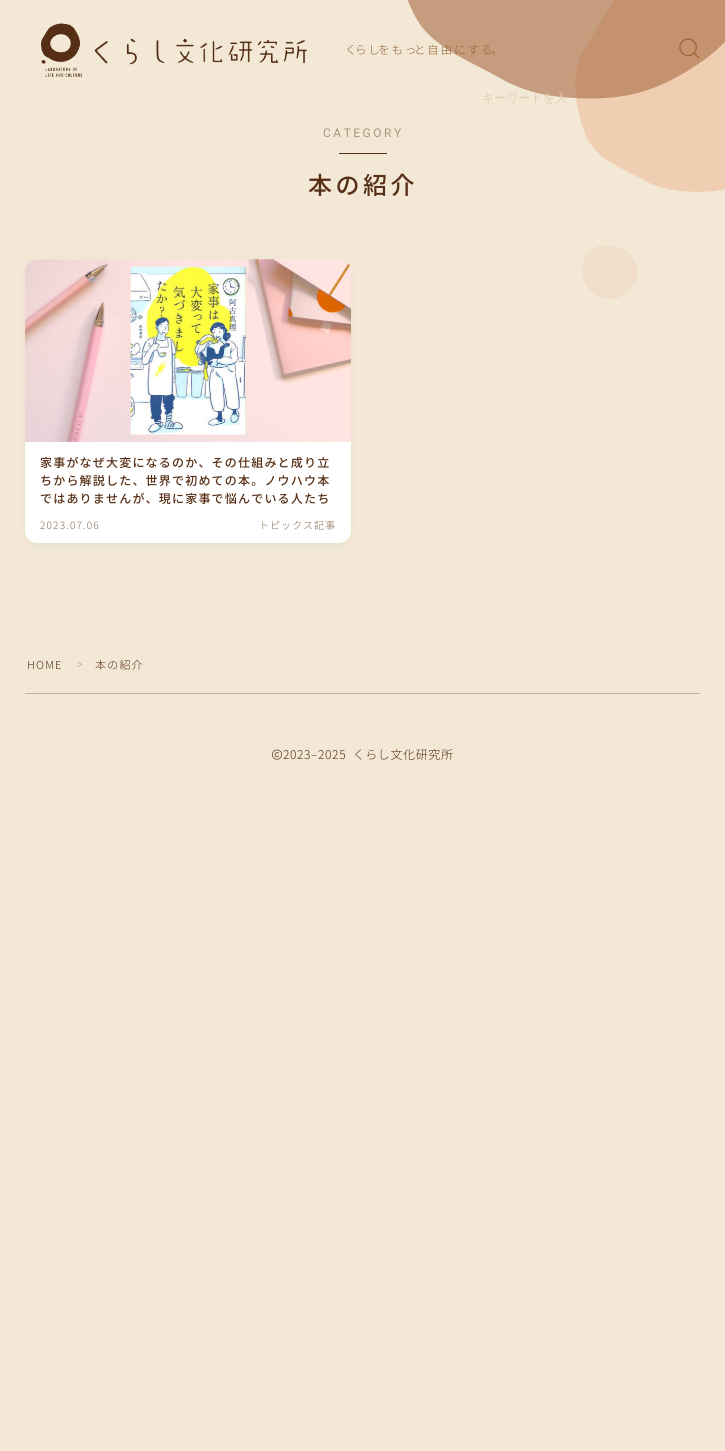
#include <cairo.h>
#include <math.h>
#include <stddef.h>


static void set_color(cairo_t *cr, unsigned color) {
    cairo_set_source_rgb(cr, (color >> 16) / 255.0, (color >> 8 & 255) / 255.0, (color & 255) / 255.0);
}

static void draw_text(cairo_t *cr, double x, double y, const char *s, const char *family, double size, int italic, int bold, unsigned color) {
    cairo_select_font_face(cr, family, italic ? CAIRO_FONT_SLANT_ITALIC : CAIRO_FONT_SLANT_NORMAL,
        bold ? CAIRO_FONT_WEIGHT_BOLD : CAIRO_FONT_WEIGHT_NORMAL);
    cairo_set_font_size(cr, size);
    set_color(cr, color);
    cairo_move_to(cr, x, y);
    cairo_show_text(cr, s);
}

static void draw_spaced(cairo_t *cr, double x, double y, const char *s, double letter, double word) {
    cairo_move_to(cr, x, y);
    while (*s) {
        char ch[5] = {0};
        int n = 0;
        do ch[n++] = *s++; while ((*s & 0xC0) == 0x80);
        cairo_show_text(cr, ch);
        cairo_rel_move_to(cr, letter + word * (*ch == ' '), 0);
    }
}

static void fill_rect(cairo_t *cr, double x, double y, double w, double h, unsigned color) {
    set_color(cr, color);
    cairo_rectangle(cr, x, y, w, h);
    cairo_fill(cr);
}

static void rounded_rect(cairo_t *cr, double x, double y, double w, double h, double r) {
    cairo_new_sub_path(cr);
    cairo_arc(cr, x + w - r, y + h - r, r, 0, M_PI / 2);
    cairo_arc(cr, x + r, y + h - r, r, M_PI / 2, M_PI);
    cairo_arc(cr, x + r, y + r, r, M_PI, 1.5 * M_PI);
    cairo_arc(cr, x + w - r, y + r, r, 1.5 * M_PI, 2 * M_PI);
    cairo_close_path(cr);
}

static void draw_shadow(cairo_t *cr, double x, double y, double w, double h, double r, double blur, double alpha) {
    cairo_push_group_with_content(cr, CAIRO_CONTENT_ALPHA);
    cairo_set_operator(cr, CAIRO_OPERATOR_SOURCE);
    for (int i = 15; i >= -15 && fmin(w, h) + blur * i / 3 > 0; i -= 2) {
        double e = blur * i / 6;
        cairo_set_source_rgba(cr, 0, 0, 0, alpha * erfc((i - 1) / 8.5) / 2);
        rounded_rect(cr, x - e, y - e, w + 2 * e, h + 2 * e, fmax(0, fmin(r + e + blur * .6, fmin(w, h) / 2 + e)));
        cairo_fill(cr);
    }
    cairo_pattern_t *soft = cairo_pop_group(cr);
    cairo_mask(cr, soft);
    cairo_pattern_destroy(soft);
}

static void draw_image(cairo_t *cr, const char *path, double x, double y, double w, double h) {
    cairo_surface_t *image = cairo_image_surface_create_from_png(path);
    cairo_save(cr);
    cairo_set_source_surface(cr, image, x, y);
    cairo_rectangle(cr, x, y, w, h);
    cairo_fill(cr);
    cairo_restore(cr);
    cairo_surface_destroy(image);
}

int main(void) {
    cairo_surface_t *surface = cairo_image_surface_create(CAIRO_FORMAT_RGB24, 725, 1451);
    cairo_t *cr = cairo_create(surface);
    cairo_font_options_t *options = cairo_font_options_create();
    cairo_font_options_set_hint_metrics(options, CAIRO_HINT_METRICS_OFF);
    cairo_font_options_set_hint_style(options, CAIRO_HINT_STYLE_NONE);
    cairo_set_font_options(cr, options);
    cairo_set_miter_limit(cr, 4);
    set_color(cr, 0xF2E8D5);
    cairo_paint(cr);
    draw_image(cr, "assets/img1.png", 407, 0, 318, 299);
    draw_image(cr, "assets/img2.png", 41, 23, 266, 54);
    cairo_select_font_face(cr, "Noto Sans JP Light", CAIRO_FONT_SLANT_NORMAL, CAIRO_FONT_WEIGHT_NORMAL);
    cairo_set_font_size(cr, 11.6);
    set_color(cr, 0x966031);
    draw_spaced(cr, 345, 54, "く", 1.75, 0);
    draw_spaced(cr, 355, 54, "らし", 1.75, 0);
    draw_spaced(cr, 378, 54, "をもっ", 1.75, 0);
    draw_spaced(cr, 414, 54, "と自由にする", 1.75, 0);
    draw_spaced(cr, 491, 54, "。", 1.75, 0);
    draw_image(cr, "assets/img3.png", 679, 38, 21, 21);
    draw_text(cr, 482, 102, "キーワードを入", "WenQuanYi Zen Hei Medium", 12, 0, 0, 0xE5CBB1);
    cairo_select_font_face(cr, "Roboto", CAIRO_FONT_SLANT_NORMAL, CAIRO_FONT_WEIGHT_NORMAL);
    set_color(cr, 0xAC957F);
    draw_spaced(cr, 323, 137, "CATEGORY", 2.5, 0);
    fill_rect(cr, 339, 153, 48, 1, 0x572F16);
    cairo_select_font_face(cr, "Noto Sans JP Medium", CAIRO_FONT_SLANT_NORMAL, CAIRO_FONT_WEIGHT_NORMAL);
    cairo_set_font_size(cr, 24);
    draw_spaced(cr, 308, 194, "本の紹介", 3.5, 0);
    set_color(cr, 0xAAAAAA);
    draw_shadow(cr, 25, 261, 326, 284, 12, 3, 0.15);
    set_color(cr, 0xFFFFFF);
    rounded_rect(cr, 25, 259, 326, 284, 12);
    cairo_fill(cr);
    draw_image(cr, "assets/img4.png", 25, 259, 326, 183);
    cairo_set_font_size(cr, 12);
    set_color(cr, 0x572F16);
    draw_spaced(cr, 40, 467, "家事がなぜ大変になるのか、その仕組みと成り立", 1.2, 0);
    draw_spaced(cr, 40, 485, "ちから解説した、世界で初めての本。ノウハウ本", 1.2, 0);
    draw_spaced(cr, 40, 503, "ではありませんが、現に家事で悩んでいる人たち", 1.2, 0);
    cairo_select_font_face(cr, "Noto Sans JP Light", CAIRO_FONT_SLANT_NORMAL, CAIRO_FONT_WEIGHT_NORMAL);
    cairo_set_font_size(cr, 10);
    set_color(cr, 0x86674F);
    draw_spaced(cr, 40, 529, "2023.07.06", 1.2, 0);
    draw_spaced(cr, 259, 529, "トピックス記事", 1, 0);
    cairo_set_font_size(cr, 11);
    set_color(cr, 0x572F16);
    draw_spaced(cr, 27, 669, "HOME", 1.2, 0);
    cairo_set_font_size(cr, 7);
    set_color(cr, 0x86674F);
    draw_spaced(cr, 76, 667, "＞", 1, 0);
    cairo_set_font_size(cr, 11);
    set_color(cr, 0x572F16);
    draw_spaced(cr, 95, 669, "本の紹介", 1.2, 0);
    fill_rect(cr, 25, 693, 675, 1, 0xC4B19C);
    draw_image(cr, "assets/img5.png", 272, 749, 10, 11);
    cairo_set_font_size(cr, 12);
    set_color(cr, 0x572F16);
    draw_spaced(cr, 283, 759, "2023–2025  くらし文化研究所", 0.6, 0);
    cairo_surface_write_to_png(surface, "output.png");
    cairo_font_options_destroy(options);
    cairo_destroy(cr);
    cairo_surface_destroy(surface);
    return 0;
}
